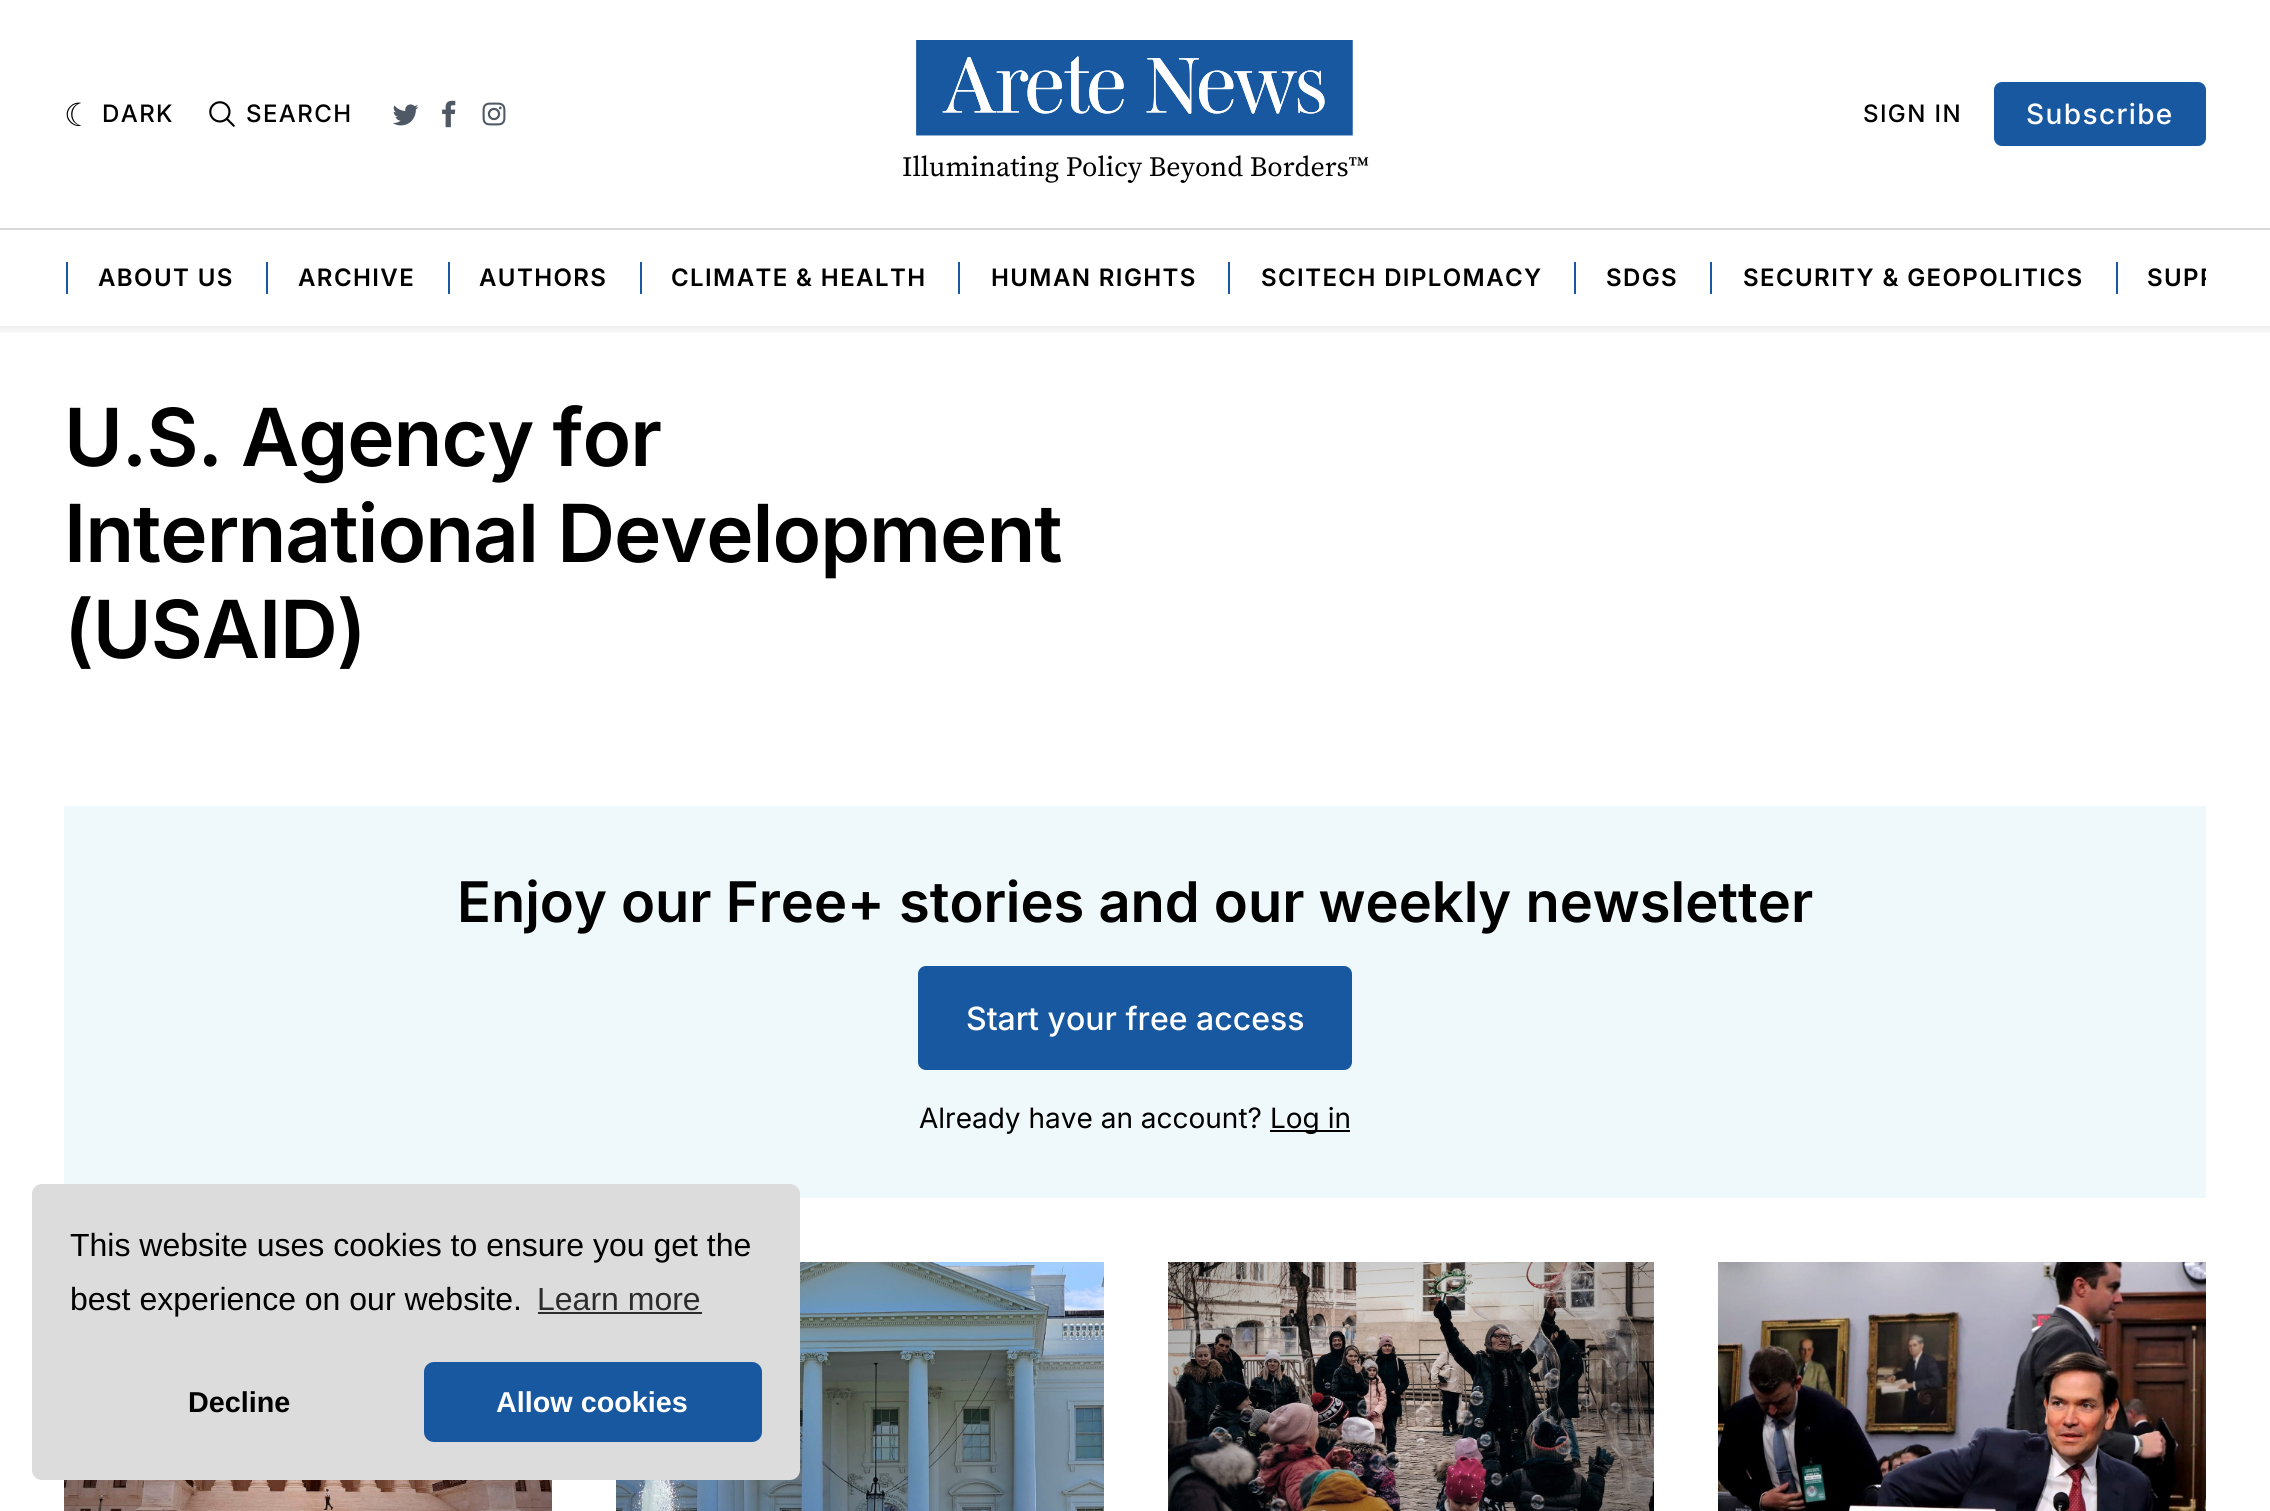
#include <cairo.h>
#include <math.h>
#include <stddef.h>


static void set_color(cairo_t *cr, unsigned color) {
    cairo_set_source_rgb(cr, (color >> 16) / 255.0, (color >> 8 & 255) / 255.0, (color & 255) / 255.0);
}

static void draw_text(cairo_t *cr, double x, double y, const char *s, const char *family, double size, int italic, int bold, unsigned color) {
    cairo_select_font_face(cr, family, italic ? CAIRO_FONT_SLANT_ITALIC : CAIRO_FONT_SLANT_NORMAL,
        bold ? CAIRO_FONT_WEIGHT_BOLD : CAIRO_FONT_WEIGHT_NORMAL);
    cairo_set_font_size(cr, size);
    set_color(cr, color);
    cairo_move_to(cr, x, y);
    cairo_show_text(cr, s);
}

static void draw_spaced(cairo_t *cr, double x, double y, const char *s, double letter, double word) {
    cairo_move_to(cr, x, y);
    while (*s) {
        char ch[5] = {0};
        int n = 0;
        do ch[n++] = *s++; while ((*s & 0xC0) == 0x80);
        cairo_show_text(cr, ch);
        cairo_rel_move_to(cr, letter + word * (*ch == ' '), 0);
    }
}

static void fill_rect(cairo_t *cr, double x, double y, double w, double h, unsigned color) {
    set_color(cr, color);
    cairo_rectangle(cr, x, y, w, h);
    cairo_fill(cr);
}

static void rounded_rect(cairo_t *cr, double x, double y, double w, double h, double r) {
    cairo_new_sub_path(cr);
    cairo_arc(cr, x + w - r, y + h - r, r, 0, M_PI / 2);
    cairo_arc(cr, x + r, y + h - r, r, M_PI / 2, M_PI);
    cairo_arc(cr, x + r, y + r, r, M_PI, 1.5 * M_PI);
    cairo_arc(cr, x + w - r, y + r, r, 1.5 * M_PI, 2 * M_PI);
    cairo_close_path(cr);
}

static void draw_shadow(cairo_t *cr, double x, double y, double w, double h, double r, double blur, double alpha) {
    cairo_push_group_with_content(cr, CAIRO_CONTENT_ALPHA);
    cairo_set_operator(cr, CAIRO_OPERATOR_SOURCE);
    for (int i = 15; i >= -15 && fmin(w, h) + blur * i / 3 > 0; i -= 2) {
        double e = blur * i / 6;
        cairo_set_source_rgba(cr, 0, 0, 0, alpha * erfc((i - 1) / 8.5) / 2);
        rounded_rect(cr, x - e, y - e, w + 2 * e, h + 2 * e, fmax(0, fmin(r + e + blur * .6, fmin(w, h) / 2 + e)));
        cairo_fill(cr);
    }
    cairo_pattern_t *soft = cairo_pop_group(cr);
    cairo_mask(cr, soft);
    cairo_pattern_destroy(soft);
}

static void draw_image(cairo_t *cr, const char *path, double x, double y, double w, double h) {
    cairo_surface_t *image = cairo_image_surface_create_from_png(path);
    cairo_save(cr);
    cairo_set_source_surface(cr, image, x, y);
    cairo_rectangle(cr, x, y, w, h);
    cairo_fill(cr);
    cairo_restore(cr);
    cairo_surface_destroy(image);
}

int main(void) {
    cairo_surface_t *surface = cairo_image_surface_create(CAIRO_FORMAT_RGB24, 2270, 1511);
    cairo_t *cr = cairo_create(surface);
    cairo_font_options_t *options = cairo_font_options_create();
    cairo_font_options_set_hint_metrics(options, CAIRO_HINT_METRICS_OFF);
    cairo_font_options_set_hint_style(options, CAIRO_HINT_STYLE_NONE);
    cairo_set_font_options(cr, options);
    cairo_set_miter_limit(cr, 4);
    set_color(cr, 0xFFFFFF);
    cairo_paint(cr);
    cairo_save(cr);
    cairo_rectangle(cr, 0, 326, 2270, 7);
    cairo_clip(cr);
    set_color(cr, 0x000000);
    draw_shadow(cr, -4, -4, 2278, 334, 0, 4, 0.08);
    cairo_restore(cr);
    fill_rect(cr, 0, 228, 2270, 2, 0xD9D9D9);
    cairo_select_font_face(cr, "DejaVu Sans", CAIRO_FONT_SLANT_NORMAL, CAIRO_FONT_WEIGHT_NORMAL);
    cairo_set_font_size(cr, 32);
    set_color(cr, 0x000000);
    draw_spaced(cr, 64, 126, "☾", 1.4, 0);
    cairo_select_font_face(cr, "Inter Medium", CAIRO_FONT_SLANT_NORMAL, CAIRO_FONT_WEIGHT_NORMAL);
    cairo_set_font_size(cr, 24);
    draw_spaced(cr, 102, 122, "DARK", 1.4, 0);
    draw_image(cr, "assets/img1.png", 209, 101, 26, 26);
    draw_spaced(cr, 246, 122, "SEARCH", 1.4, 0);
    draw_image(cr, "assets/img2.png", 393, 104, 26, 22);
    draw_image(cr, "assets/img3.png", 442, 100, 14, 28);
    draw_image(cr, "assets/img4.png", 482, 102, 24, 24);
    draw_spaced(cr, 1863, 122, "SIGN IN", 1.4, 0);
    set_color(cr, 0x1858A0);
    rounded_rect(cr, 1994, 82, 212, 64, 8);
    cairo_fill(cr);
    cairo_set_font_size(cr, 28);
    set_color(cr, 0xFFFFFF);
    draw_spaced(cr, 2026, 124, "Subscribe", 1.4, 0);
    draw_image(cr, "assets/img5.png", 916, 40, 437, 96);
    draw_text(cr, 902, 176, "Illuminating Policy Beyond Borders™", "Source Serif Pro", 28, 0, 0, 0x000000);
    fill_rect(cr, 66, 262, 2, 32, 0x1858A0);
    cairo_select_font_face(cr, "Inter SemiBold", CAIRO_FONT_SLANT_NORMAL, CAIRO_FONT_WEIGHT_NORMAL);
    cairo_set_font_size(cr, 24);
    set_color(cr, 0x000000);
    draw_spaced(cr, 98, 286, "ABOUT US", 1.4, 0);
    fill_rect(cr, 266, 262, 2, 32, 0x1858A0);
    set_color(cr, 0x000000);
    draw_spaced(cr, 298, 286, "ARCHIVE", 1.4, 0);
    fill_rect(cr, 448, 262, 2, 32, 0x1858A0);
    set_color(cr, 0x000000);
    draw_spaced(cr, 479, 286, "AUTHORS", 1.4, 0);
    fill_rect(cr, 640, 262, 2, 32, 0x1858A0);
    set_color(cr, 0x000000);
    draw_spaced(cr, 671, 286, "CLIMATE & HEALTH", 1.4, 0);
    fill_rect(cr, 958, 262, 2, 32, 0x1858A0);
    set_color(cr, 0x000000);
    draw_spaced(cr, 991, 286, "HUMAN RIGHTS", 1.4, 0);
    fill_rect(cr, 1228, 262, 2, 32, 0x1858A0);
    set_color(cr, 0x000000);
    draw_spaced(cr, 1261, 286, "SCITECH DIPLOMACY", 1.4, 0);
    fill_rect(cr, 1574, 262, 2, 32, 0x1858A0);
    set_color(cr, 0x000000);
    draw_spaced(cr, 1606, 286, "SDGS", 1.4, 0);
    fill_rect(cr, 1710, 262, 2, 32, 0x1858A0);
    set_color(cr, 0x000000);
    draw_spaced(cr, 1743, 286, "SECURITY & GEOPOLITICS", 1.4, 0);
    fill_rect(cr, 2116, 262, 2, 32, 0x1858A0);
    cairo_save(cr);
    cairo_rectangle(cr, 64, 230, 2142, 96);
    cairo_clip(cr);
    set_color(cr, 0x000000);
    draw_spaced(cr, 2147, 286, "SUPP", 1.4, 0);
    cairo_restore(cr);
    cairo_set_font_size(cr, 80);
    set_color(cr, 0x000000);
    draw_spaced(cr, 64, 466, "U.S. Agency for", -1, 0);
    draw_spaced(cr, 64, 562, "International Development", -1, 0);
    draw_spaced(cr, 64, 658, "(USAID)", -1, 0);
    fill_rect(cr, 64, 806, 2142, 392, 0xEFF8FA);
    draw_text(cr, 457, 922, "Enjoy our Free+ stories and our weekly newsletter", "Inter SemiBold", 56, 0, 0, 0x000000);
    set_color(cr, 0x1858A0);
    rounded_rect(cr, 918, 966, 434, 104, 8);
    cairo_fill(cr);
    draw_text(cr, 966, 1030, "Start your free access", "Inter Medium", 32, 0, 0, 0xFFFFFF);
    draw_text(cr, 919, 1128, "Already have an account?", "Inter", 28, 0, 0, 0x000000);
    fill_rect(cr, 1270, 1130, 80, 2, 0x000000);
    draw_text(cr, 1270, 1128, "Log in", "Inter", 28, 0, 0, 0x000000);
    draw_image(cr, "assets/img6.png", 64, 1480, 488, 31);
    draw_image(cr, "assets/img7.png", 616, 1262, 488, 249);
    draw_image(cr, "assets/img8.png", 1168, 1262, 486, 249);
    draw_image(cr, "assets/img9.png", 1718, 1262, 488, 249);
    set_color(cr, 0xDCDCDC);
    rounded_rect(cr, 32, 1184, 768, 296, 10);
    cairo_fill(cr);
    draw_text(cr, 70, 1256, "This website uses cookies to ensure you get the", "Liberation Sans", 32, 0, 0, 0x000000);
    draw_text(cr, 70, 1310, "best experience on our website.", "Liberation Sans", 32, 0, 0, 0x000000);
    draw_text(cr, 537, 1310, "Learn more", "Liberation Sans", 32, 0, 0, 0x2C2C2C);
    fill_rect(cr, 538, 1312, 164, 2, 0x2C2C2C);
    draw_text(cr, 188, 1412, "Decline", "Liberation Sans", 28.75, 0, 1, 0x000000);
    set_color(cr, 0x1858A0);
    rounded_rect(cr, 424, 1362, 338, 80, 10);
    cairo_fill(cr);
    draw_text(cr, 496, 1412, "Allow cookies", "Liberation Sans", 28.75, 0, 1, 0xFFFFFF);
    cairo_surface_write_to_png(surface, "output.png");
    cairo_font_options_destroy(options);
    cairo_destroy(cr);
    cairo_surface_destroy(surface);
    return 0;
}
